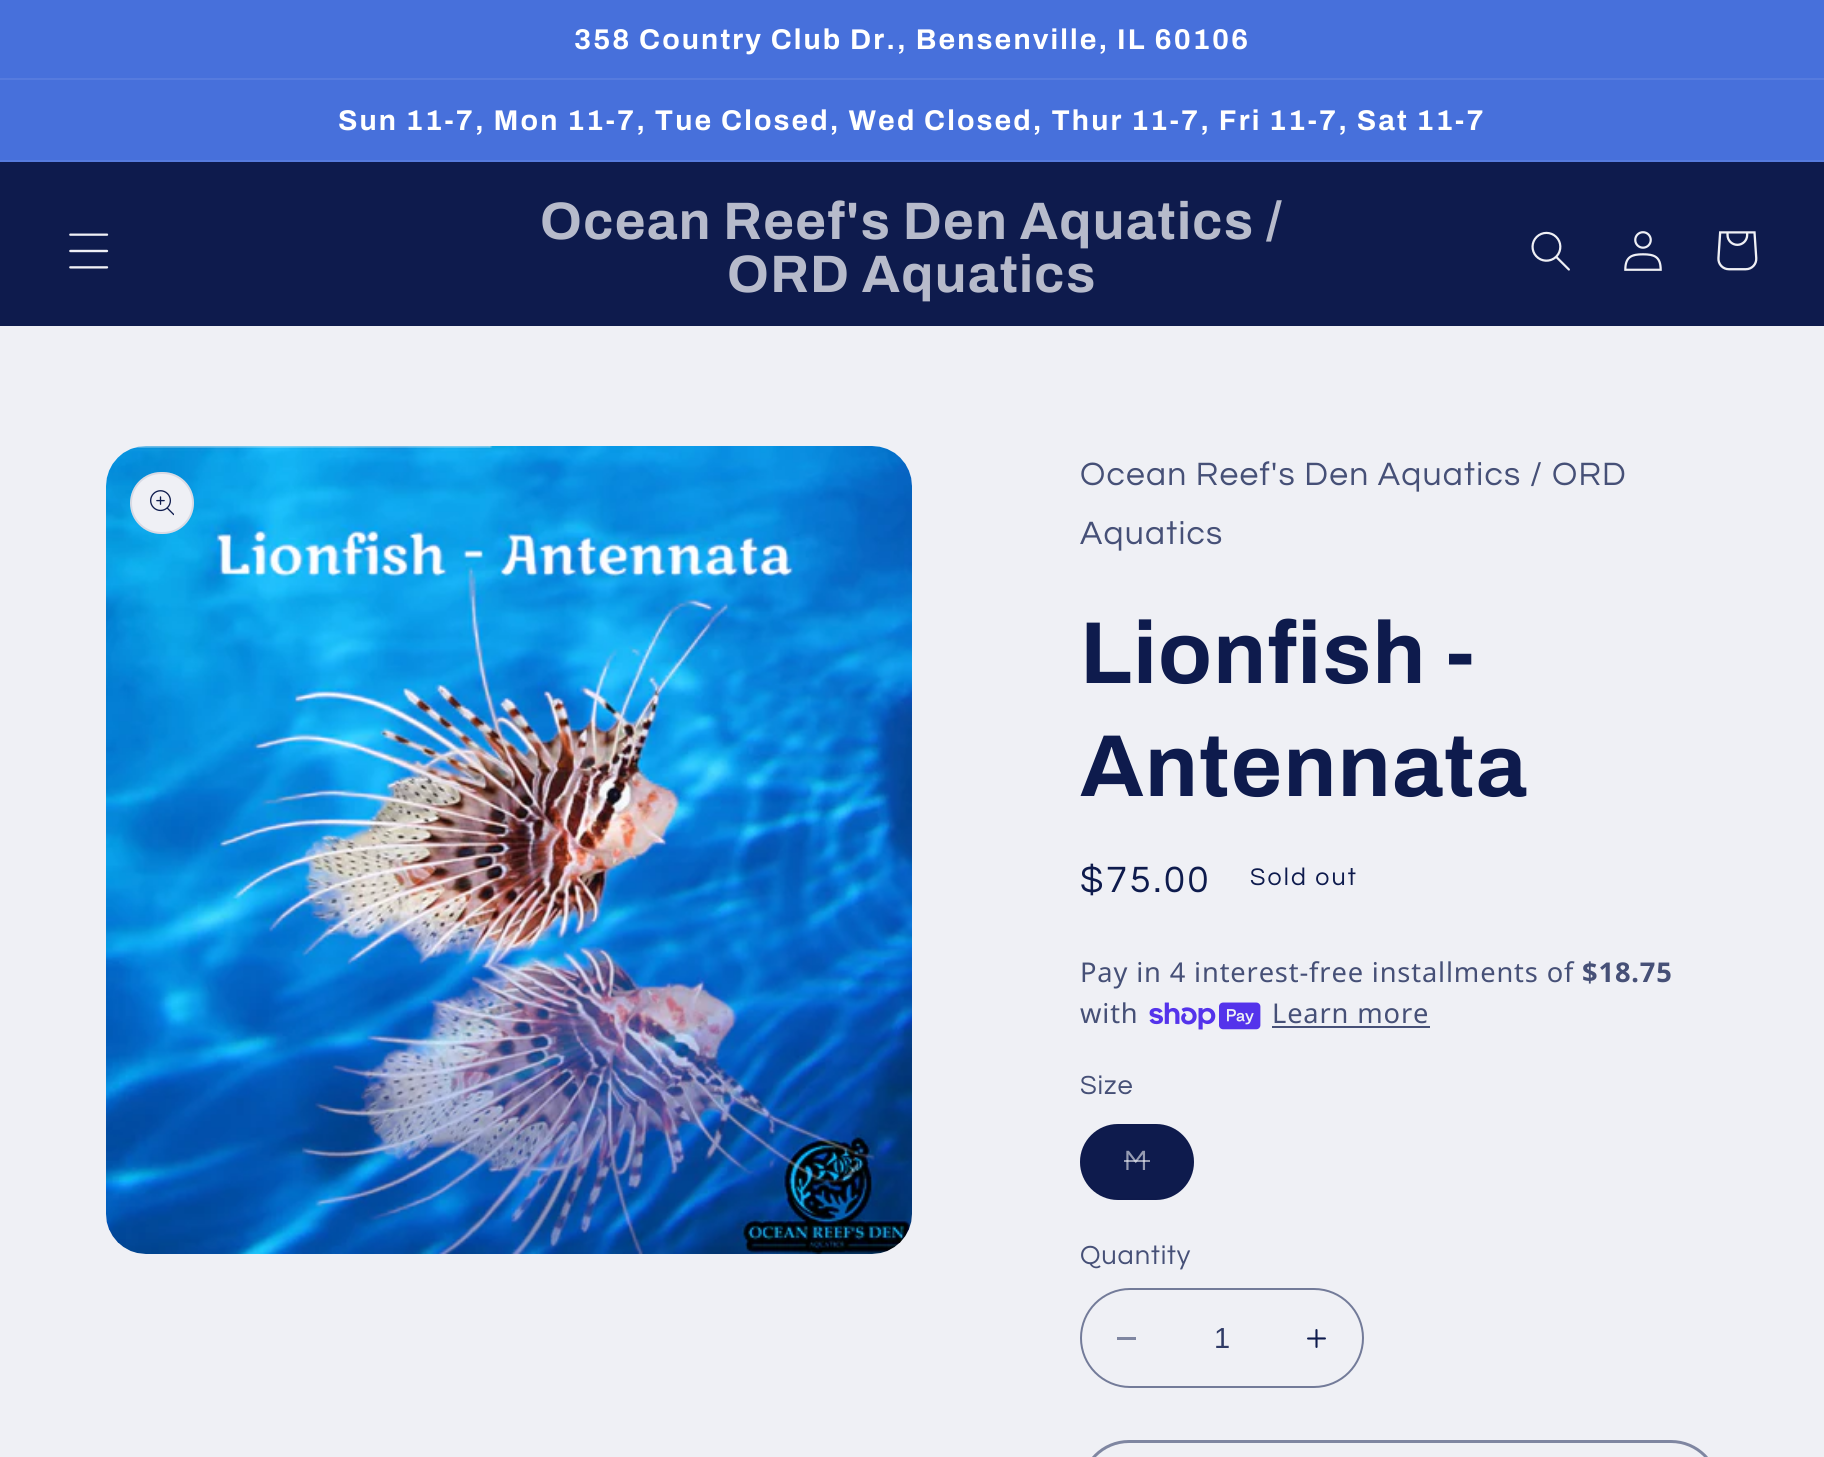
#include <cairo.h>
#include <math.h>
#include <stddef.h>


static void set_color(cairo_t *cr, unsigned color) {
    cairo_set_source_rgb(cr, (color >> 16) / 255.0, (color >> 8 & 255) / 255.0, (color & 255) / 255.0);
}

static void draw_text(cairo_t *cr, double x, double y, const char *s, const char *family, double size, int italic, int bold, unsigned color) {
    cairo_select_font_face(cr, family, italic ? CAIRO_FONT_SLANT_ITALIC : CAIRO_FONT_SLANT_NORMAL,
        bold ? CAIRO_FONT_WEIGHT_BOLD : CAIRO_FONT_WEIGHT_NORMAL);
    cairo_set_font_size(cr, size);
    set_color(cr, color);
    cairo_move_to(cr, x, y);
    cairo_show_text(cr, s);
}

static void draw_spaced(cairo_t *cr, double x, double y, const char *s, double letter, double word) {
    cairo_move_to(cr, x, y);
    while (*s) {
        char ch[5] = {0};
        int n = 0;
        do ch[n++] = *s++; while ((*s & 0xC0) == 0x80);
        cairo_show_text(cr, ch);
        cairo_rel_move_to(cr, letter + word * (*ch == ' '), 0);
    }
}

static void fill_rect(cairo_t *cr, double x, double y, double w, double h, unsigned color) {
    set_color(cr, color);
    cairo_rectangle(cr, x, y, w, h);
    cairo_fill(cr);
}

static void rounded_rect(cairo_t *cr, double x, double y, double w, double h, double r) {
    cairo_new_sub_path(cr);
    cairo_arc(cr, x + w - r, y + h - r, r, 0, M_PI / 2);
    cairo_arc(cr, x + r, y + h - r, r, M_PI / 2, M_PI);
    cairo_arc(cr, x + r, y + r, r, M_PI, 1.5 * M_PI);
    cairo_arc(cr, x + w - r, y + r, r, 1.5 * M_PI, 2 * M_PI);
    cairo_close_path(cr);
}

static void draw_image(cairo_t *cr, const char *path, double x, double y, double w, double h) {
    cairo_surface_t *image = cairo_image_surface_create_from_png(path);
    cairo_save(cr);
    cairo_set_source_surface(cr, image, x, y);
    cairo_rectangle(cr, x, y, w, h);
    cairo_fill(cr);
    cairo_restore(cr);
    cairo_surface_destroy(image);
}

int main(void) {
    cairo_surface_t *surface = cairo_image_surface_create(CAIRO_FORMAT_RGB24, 1824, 1457);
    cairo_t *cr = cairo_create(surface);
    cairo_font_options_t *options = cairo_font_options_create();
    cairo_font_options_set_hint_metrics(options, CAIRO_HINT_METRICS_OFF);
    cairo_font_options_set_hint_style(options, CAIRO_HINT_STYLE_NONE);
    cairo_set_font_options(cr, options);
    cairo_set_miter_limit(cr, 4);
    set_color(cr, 0xEFF0F5);
    cairo_paint(cr);
    fill_rect(cr, 0, 0, 1824, 78, 0x4770DB);
    fill_rect(cr, 0, 78, 1824, 2, 0x567BDE);
    cairo_select_font_face(cr, "Archivo", CAIRO_FONT_SLANT_NORMAL, CAIRO_FONT_WEIGHT_BOLD);
    cairo_set_font_size(cr, 28.6);
    set_color(cr, 0xFFFFFF);
    draw_spaced(cr, 574, 49, "358 Country Club Dr., Bensenville, IL 60106", 2.1, 0);
    fill_rect(cr, 0, 80, 1824, 80, 0x4770DB);
    fill_rect(cr, 0, 160, 1824, 2, 0x567BDE);
    set_color(cr, 0xFFFFFF);
    draw_spaced(cr, 338, 130, "Sun 11-7, Mon 11-7, Tue Closed, Wed Closed, Thur 11-7, Fri 11-7, Sat 11-7", 2.1, 0);
    fill_rect(cr, 0, 162, 1824, 164, 0x0E1B4D);
    draw_image(cr, "assets/img1.png", 69, 233, 40, 36);
    cairo_set_font_size(cr, 52.75);
    set_color(cr, 0xB7BBCB);
    draw_spaced(cr, 540, 239, "Ocean Reef's Den Aquatics /", 1.3, 0);
    draw_spaced(cr, 727, 292, "ORD Aquatics", 1.3, 0);
    draw_image(cr, "assets/img2.png", 1531, 231, 39, 40);
    draw_image(cr, "assets/img3.png", 1624, 231, 38, 40);
    draw_image(cr, "assets/img4.png", 1717, 231, 41, 40);
    draw_image(cr, "assets/img5.png", 106, 446, 806, 808);
    set_color(cr, 0xEFF0F5);
    rounded_rect(cr, 130, 472, 64, 62, 31);
    cairo_fill(cr);
    rounded_rect(cr, 131, 473, 62, 60, 30);
    cairo_set_source_rgba(cr, 0.055, 0.106, 0.302, 0.1);
    cairo_stroke(cr);
    draw_image(cr, "assets/img6.png", 150, 490, 24, 26);
    cairo_select_font_face(cr, "Questrial", CAIRO_FONT_SLANT_NORMAL, CAIRO_FONT_WEIGHT_NORMAL);
    cairo_set_font_size(cr, 33.6);
    set_color(cr, 0x465077);
    draw_spaced(cr, 1080, 485, "Ocean Reef's Den Aquatics / ORD", 1.25, 0);
    draw_spaced(cr, 1080, 544, "Aquatics", 1.25, 0);
    cairo_select_font_face(cr, "Archivo", CAIRO_FONT_SLANT_NORMAL, CAIRO_FONT_WEIGHT_BOLD);
    cairo_set_font_size(cr, 88);
    set_color(cr, 0x0E1B4D);
    draw_spaced(cr, 1080, 683, "Lionfish -", 1.3, 0);
    draw_spaced(cr, 1080, 796, "Antennata", 1.3, 0);
    cairo_select_font_face(cr, "Questrial", CAIRO_FONT_SLANT_NORMAL, CAIRO_FONT_WEIGHT_NORMAL);
    cairo_set_font_size(cr, 38);
    draw_spaced(cr, 1080, 892, "$75.00", 2.75, 0);
    cairo_set_font_size(cr, 25);
    draw_spaced(cr, 1250, 885, "Sold out", 2.1, 0);
    cairo_select_font_face(cr, "Noto Sans", CAIRO_FONT_SLANT_NORMAL, CAIRO_FONT_WEIGHT_NORMAL);
    cairo_set_font_size(cr, 27.25);
    set_color(cr, 0x465077);
    draw_spaced(cr, 1080, 982, "Pay in 4 interest-free installments of", 0.85, 0);
    cairo_select_font_face(cr, "Noto Sans", CAIRO_FONT_SLANT_NORMAL, CAIRO_FONT_WEIGHT_BOLD);
    draw_spaced(cr, 1582, 982, "$18.75", 0.85, 0);
    cairo_select_font_face(cr, "Noto Sans", CAIRO_FONT_SLANT_NORMAL, CAIRO_FONT_WEIGHT_NORMAL);
    draw_spaced(cr, 1080, 1023, "with", 0.85, 0);
    draw_image(cr, "assets/img7.png", 1149, 1002, 112, 28);
    draw_spaced(cr, 1272, 1023, "Learn more", 0.85, 0);
    fill_rect(cr, 1272, 1026, 158, 2, 0x465077);
    cairo_select_font_face(cr, "Questrial", CAIRO_FONT_SLANT_NORMAL, CAIRO_FONT_WEIGHT_NORMAL);
    draw_spaced(cr, 1080, 1094, "Size", 0.85, 0);
    set_color(cr, 0x0E1B4D);
    rounded_rect(cr, 1080, 1124, 114, 76, 38);
    cairo_fill(cr);
    rounded_rect(cr, 1081, 1125, 112, 74, 37);
    cairo_set_source_rgba(cr, 0.055, 0.106, 0.302, 0.1);
    cairo_stroke(cr);
    cairo_set_font_size(cr, 29);
    set_color(cr, 0x959BB2);
    draw_spaced(cr, 1124, 1170, "M", 2.1, 0);
    cairo_set_source_rgba(cr, 0.937, 0.941, 0.961, 0.6);
    cairo_rectangle(cr, 1124, 1160, 26, 2);
    cairo_fill(cr);
    cairo_set_font_size(cr, 27.25);
    set_color(cr, 0x465077);
    draw_spaced(cr, 1080, 1264, "Quantity", 0.85, 0);
    fill_rect(cr, 1117, 1337, 19, 3, 0x7F86A1);
    draw_image(cr, "assets/img8.png", 1307, 1329, 19, 19);
    rounded_rect(cr, 1081, 1289, 282, 98, 49);
    set_color(cr, 0x737B99);
    cairo_stroke(cr);
    draw_text(cr, 1214, 1348, "1", "Liberation Sans", 29, 0, 0, 0x303B66);
    rounded_rect(cr, 1081.5, 1441.5, 637, 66, 47.5);
    set_color(cr, 0x7F86A1);
    cairo_set_line_width(cr, 3);
    cairo_stroke(cr);
    cairo_surface_write_to_png(surface, "output.png");
    cairo_font_options_destroy(options);
    cairo_destroy(cr);
    cairo_surface_destroy(surface);
    return 0;
}
